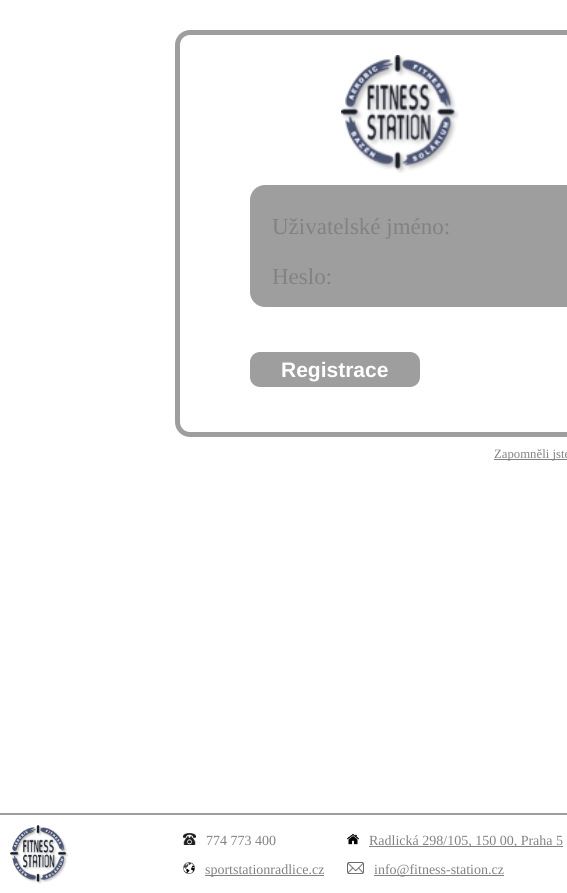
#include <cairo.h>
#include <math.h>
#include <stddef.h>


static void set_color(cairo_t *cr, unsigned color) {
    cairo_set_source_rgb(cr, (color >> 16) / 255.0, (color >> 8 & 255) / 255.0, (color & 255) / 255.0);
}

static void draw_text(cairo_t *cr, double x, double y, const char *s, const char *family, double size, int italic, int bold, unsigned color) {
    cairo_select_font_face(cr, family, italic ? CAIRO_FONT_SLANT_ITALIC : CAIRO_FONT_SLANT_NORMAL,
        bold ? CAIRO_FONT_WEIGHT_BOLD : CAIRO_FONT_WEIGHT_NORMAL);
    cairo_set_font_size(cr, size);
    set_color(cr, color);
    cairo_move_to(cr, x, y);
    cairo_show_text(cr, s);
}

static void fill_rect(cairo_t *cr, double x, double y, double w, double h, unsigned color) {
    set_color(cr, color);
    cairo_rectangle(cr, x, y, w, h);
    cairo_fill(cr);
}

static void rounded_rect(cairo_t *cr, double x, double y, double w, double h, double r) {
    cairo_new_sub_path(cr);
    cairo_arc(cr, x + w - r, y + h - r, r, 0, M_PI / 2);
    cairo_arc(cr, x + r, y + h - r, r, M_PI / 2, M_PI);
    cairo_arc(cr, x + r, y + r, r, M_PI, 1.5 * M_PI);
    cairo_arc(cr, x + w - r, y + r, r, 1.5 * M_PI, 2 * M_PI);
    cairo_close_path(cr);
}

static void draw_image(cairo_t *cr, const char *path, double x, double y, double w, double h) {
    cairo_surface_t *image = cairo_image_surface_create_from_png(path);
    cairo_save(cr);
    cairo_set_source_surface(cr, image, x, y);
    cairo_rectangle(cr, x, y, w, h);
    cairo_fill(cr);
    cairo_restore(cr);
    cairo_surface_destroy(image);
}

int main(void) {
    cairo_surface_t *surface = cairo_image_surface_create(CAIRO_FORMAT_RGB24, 567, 893);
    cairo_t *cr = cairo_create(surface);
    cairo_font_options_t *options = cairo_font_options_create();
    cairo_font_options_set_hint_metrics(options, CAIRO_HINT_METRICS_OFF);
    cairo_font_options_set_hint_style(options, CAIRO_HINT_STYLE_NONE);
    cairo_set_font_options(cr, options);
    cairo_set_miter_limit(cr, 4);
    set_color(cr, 0xFFFFFF);
    cairo_paint(cr);
    rounded_rect(cr, 177.5, 32.5, 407, 402, 12.5);
    set_color(cr, 0x9E9E9E);
    cairo_set_line_width(cr, 5);
    cairo_stroke(cr);
    draw_image(cr, "assets/img1.png", 341, 55, 118, 118);
    rounded_rect(cr, 250, 185, 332, 122, 15);
    cairo_fill(cr);
    draw_text(cr, 272, 234, "Uživatelské jméno:", "Liberation Serif", 23, 0, 0, 0x828282);
    draw_text(cr, 272, 284, "Heslo:", "Liberation Serif", 23, 0, 0, 0x828282);
    set_color(cr, 0x9E9E9E);
    rounded_rect(cr, 250, 352, 170, 35, 10);
    cairo_fill(cr);
    draw_text(cr, 281, 377, "Registrace", "Liberation Sans", 21, 0, 1, 0xFFFFFF);
    fill_rect(cr, 494, 459, 73, 1, 0x828282);
    draw_text(cr, 494, 458, "Zapomněli jste", "Liberation Serif", 12.75, 0, 0, 0x828282);
    fill_rect(cr, 0, 813, 567, 2, 0x9E9E9E);
    draw_image(cr, "assets/img2.png", 10, 825, 58, 59);
    draw_image(cr, "assets/img3.png", 183, 833, 13, 12);
    draw_text(cr, 206, 845, "774 773 400", "Liberation Serif", 14, 0, 0, 0x828282);
    draw_image(cr, "assets/img4.png", 347, 833, 12, 12);
    fill_rect(cr, 369, 846, 194, 1, 0x828282);
    draw_text(cr, 369, 845, "Radlická 298/105, 150 00, Praha 5", "Liberation Serif", 14, 0, 0, 0x828282);
    draw_image(cr, "assets/img5.png", 183, 862, 12, 12);
    fill_rect(cr, 205, 875, 119, 1, 0x828282);
    draw_text(cr, 205, 874, "sportstationradlice.cz", "Liberation Serif", 14, 0, 0, 0x828282);
    draw_image(cr, "assets/img6.png", 347, 862, 17, 12);
    fill_rect(cr, 374, 875, 130, 1, 0x828282);
    draw_text(cr, 374, 874, "info@fitness-station.cz", "Liberation Serif", 14, 0, 0, 0x828282);
    cairo_surface_write_to_png(surface, "output.png");
    cairo_font_options_destroy(options);
    cairo_destroy(cr);
    cairo_surface_destroy(surface);
    return 0;
}
